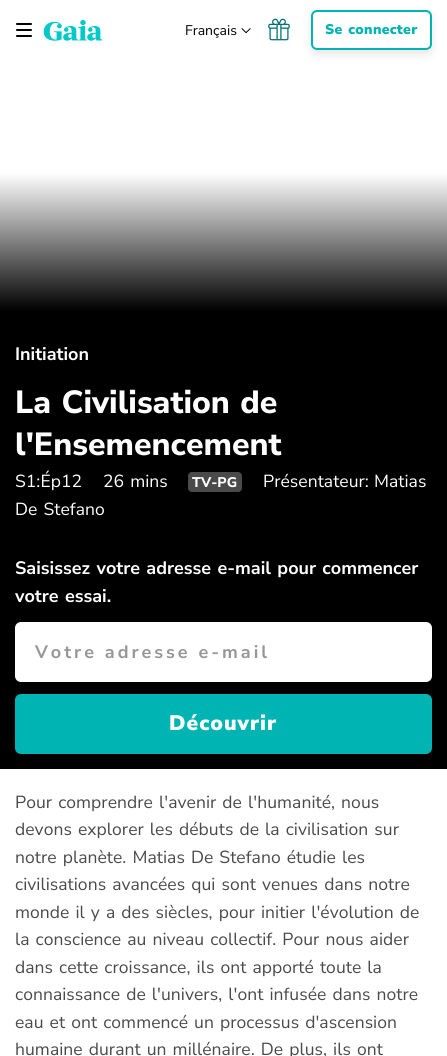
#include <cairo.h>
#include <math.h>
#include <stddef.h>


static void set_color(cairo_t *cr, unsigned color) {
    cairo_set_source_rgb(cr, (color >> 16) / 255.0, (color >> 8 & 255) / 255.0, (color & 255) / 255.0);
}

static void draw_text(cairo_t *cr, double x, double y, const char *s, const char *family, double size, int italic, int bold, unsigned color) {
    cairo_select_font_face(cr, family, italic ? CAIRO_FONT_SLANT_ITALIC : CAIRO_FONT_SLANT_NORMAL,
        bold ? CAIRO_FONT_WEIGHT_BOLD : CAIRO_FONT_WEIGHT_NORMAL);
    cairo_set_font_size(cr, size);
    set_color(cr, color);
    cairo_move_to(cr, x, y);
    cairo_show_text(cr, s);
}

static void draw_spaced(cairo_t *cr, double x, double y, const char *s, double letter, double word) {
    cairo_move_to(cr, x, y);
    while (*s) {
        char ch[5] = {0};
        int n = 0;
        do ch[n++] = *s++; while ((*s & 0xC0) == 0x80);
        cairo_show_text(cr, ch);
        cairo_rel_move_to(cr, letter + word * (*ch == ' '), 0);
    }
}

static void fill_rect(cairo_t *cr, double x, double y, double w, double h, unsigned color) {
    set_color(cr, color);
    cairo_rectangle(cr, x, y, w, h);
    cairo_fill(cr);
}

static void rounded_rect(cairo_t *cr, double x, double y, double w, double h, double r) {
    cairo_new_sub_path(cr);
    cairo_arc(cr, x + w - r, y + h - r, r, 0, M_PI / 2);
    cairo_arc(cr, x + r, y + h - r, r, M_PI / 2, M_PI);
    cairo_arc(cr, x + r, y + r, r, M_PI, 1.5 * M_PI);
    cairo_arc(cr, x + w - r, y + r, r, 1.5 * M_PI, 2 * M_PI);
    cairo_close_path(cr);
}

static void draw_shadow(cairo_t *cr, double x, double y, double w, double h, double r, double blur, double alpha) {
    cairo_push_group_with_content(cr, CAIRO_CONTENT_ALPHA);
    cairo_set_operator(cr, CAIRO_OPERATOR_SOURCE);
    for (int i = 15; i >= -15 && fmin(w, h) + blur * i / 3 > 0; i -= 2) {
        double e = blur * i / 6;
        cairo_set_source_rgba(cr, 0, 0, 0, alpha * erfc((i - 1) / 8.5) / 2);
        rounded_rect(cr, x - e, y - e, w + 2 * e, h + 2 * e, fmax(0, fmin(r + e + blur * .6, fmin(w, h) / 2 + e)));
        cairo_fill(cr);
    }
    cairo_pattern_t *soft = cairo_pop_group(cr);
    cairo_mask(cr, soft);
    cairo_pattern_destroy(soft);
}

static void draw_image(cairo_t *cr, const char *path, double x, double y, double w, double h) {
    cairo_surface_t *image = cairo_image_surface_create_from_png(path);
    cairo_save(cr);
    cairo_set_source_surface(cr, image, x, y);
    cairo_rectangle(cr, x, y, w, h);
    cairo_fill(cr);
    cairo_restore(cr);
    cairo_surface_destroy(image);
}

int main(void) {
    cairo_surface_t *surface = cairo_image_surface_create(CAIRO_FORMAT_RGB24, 447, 1056);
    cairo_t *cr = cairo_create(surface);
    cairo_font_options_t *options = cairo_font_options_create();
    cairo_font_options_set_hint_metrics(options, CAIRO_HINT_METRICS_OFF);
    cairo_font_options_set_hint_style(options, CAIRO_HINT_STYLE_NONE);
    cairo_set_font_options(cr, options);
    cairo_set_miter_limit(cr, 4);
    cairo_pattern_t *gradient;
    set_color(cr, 0xFFFFFF);
    cairo_paint(cr);
    set_color(cr, 0x000000);
    rounded_rect(cr, 16, 23, 16, 2, 1);
    cairo_fill(cr);
    rounded_rect(cr, 16, 29, 16, 2, 1);
    cairo_fill(cr);
    rounded_rect(cr, 16, 35, 16, 2, 1);
    cairo_fill(cr);
    draw_image(cr, "assets/img1.png", 43, 20, 60, 21);
    draw_text(cr, 185, 35, "Français", "Nunito Sans", 14, 0, 0, 0x000000);
    draw_image(cr, "assets/img2.png", 241, 28, 10, 6);
    draw_image(cr, "assets/img3.png", 268, 18, 22, 23);
    cairo_save(cr);
    cairo_set_fill_rule(cr, CAIRO_FILL_RULE_EVEN_ODD);
    cairo_new_path(cr);
    cairo_move_to(cr, 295, 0);
    cairo_line_to(cr, 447, 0);
    cairo_line_to(cr, 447, 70);
    cairo_line_to(cr, 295, 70);
    cairo_close_path(cr);
    cairo_move_to(cr, 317, 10);
    cairo_line_to(cr, 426, 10);
    cairo_curve_to(cr, 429.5, 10, 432, 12.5, 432, 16);
    cairo_line_to(cr, 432, 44);
    cairo_curve_to(cr, 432, 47.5, 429.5, 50, 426, 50);
    cairo_line_to(cr, 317, 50);
    cairo_curve_to(cr, 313.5, 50, 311, 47.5, 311, 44);
    cairo_line_to(cr, 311, 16);
    cairo_curve_to(cr, 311, 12.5, 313.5, 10, 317, 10);
    cairo_close_path(cr);
    cairo_clip(cr);
    set_color(cr, 0x000000);
    draw_shadow(cr, 311, 14, 121, 40, 6, 5, 0.1);
    cairo_restore(cr);
    rounded_rect(cr, 312, 11, 119, 38, 5);
    set_color(cr, 0x01B4B4);
    cairo_stroke(cr);
    cairo_select_font_face(cr, "Nunito Sans Black", CAIRO_FONT_SLANT_NORMAL, CAIRO_FONT_WEIGHT_NORMAL);
    draw_spaced(cr, 325, 34, "Se connecter", 0.3, 1.5);
    gradient = cairo_pattern_create_linear(224, 311, 224, 60);
    cairo_pattern_add_color_stop_rgba(gradient, 0, 0, 0, 0, 1);
    cairo_pattern_add_color_stop_rgba(gradient, 0.55, 1, 1, 1, 1);
    cairo_set_source(cr, gradient);
    cairo_pattern_destroy(gradient);
    cairo_rectangle(cr, 0, 174, 447, 137);
    cairo_fill(cr);
    fill_rect(cr, 0, 311, 447, 458, 0x000000);
    draw_text(cr, 15, 360, "Initiation", "Nunito Sans", 18, 0, 1, 0xFFFFFF);
    cairo_select_font_face(cr, "Nunito Sans ExtraBold", CAIRO_FONT_SLANT_NORMAL, CAIRO_FONT_WEIGHT_NORMAL);
    cairo_set_font_size(cr, 32);
    draw_spaced(cr, 15, 413, "La Civilisation de", 0, 1.5);
    draw_text(cr, 15, 455, "l'Ensemencement", "Nunito Sans ExtraBold", 32, 0, 0, 0xFFFFFF);
    cairo_select_font_face(cr, "Nunito Sans", CAIRO_FONT_SLANT_NORMAL, CAIRO_FONT_WEIGHT_NORMAL);
    cairo_set_font_size(cr, 17.5);
    draw_spaced(cr, 15, 487, "S1:Ép12", 0.05, 0);
    draw_spaced(cr, 103, 487, "26 mins", 0.05, 1.5);
    set_color(cr, 0x4A4A4A);
    rounded_rect(cr, 188, 472, 54, 20, 4);
    cairo_fill(cr);
    cairo_select_font_face(cr, "Nunito Sans ExtraBold", CAIRO_FONT_SLANT_NORMAL, CAIRO_FONT_WEIGHT_NORMAL);
    cairo_set_font_size(cr, 14);
    set_color(cr, 0xFFFFFF);
    draw_spaced(cr, 192, 487, "TV-PG", 0.05, 0);
    cairo_select_font_face(cr, "Nunito Sans", CAIRO_FONT_SLANT_NORMAL, CAIRO_FONT_WEIGHT_NORMAL);
    cairo_set_font_size(cr, 17.5);
    draw_spaced(cr, 263, 487, "Présentateur:", 0.05, 0);
    draw_spaced(cr, 374, 487, "Matias", 0.05, 0);
    draw_spaced(cr, 15, 515, "De Stefano", 0.05, 1.5);
    cairo_select_font_face(cr, "Nunito Sans", CAIRO_FONT_SLANT_NORMAL, CAIRO_FONT_WEIGHT_BOLD);
    cairo_set_font_size(cr, 18);
    draw_spaced(cr, 15, 574, "Saisissez votre adresse e-mail pour commencer", 0, 1.5);
    draw_spaced(cr, 15, 602, "votre essai.", 0, 1.5);
    rounded_rect(cr, 15, 622, 417, 60, 6);
    cairo_fill(cr);
    set_color(cr, 0x989595);
    draw_spaced(cr, 35, 658, "Votre adresse e-mail", 3, 0);
    set_color(cr, 0x01B4B4);
    rounded_rect(cr, 15, 694, 417, 60, 6);
    cairo_fill(cr);
    cairo_select_font_face(cr, "Nunito Sans Black", CAIRO_FONT_SLANT_NORMAL, CAIRO_FONT_WEIGHT_NORMAL);
    cairo_set_font_size(cr, 21);
    set_color(cr, 0xFFFFFF);
    draw_spaced(cr, 169, 730, "Découvrir", 1, 0);
    cairo_select_font_face(cr, "Nunito Sans", CAIRO_FONT_SLANT_NORMAL, CAIRO_FONT_WEIGHT_NORMAL);
    cairo_set_font_size(cr, 17.5);
    set_color(cr, 0x4A4A4A);
    draw_spaced(cr, 15, 808, "Pour comprendre l'avenir de l'humanité, nous", 0.05, 1.5);
    draw_spaced(cr, 15, 835, "devons explorer les débuts de la civilisation sur", 0.05, 1.5);
    draw_spaced(cr, 15, 863, "notre planète. Matias De Stefano étudie les", 0.05, 1.5);
    draw_spaced(cr, 15, 890, "civilisations avancées qui sont venues dans notre", 0.05, 1.5);
    draw_spaced(cr, 15, 918, "monde il y a des siècles, pour initier l'évolution de", 0.05, 1.5);
    draw_spaced(cr, 15, 945, "la conscience au niveau collectif. Pour nous aider", 0.05, 1.5);
    draw_spaced(cr, 15, 973, "dans cette croissance, ils ont apporté toute la", 0.05, 1.5);
    draw_spaced(cr, 15, 1000, "connaissance de l'univers, l'ont infusée dans notre", 0.05, 1.5);
    draw_spaced(cr, 15, 1028, "eau et ont commencé un processus d'ascension", 0.05, 1.5);
    draw_spaced(cr, 15, 1055, "humaine durant un millénaire. De plus, ils ont", 0.05, 1.5);
    cairo_surface_write_to_png(surface, "output.png");
    cairo_font_options_destroy(options);
    cairo_destroy(cr);
    cairo_surface_destroy(surface);
    return 0;
}
